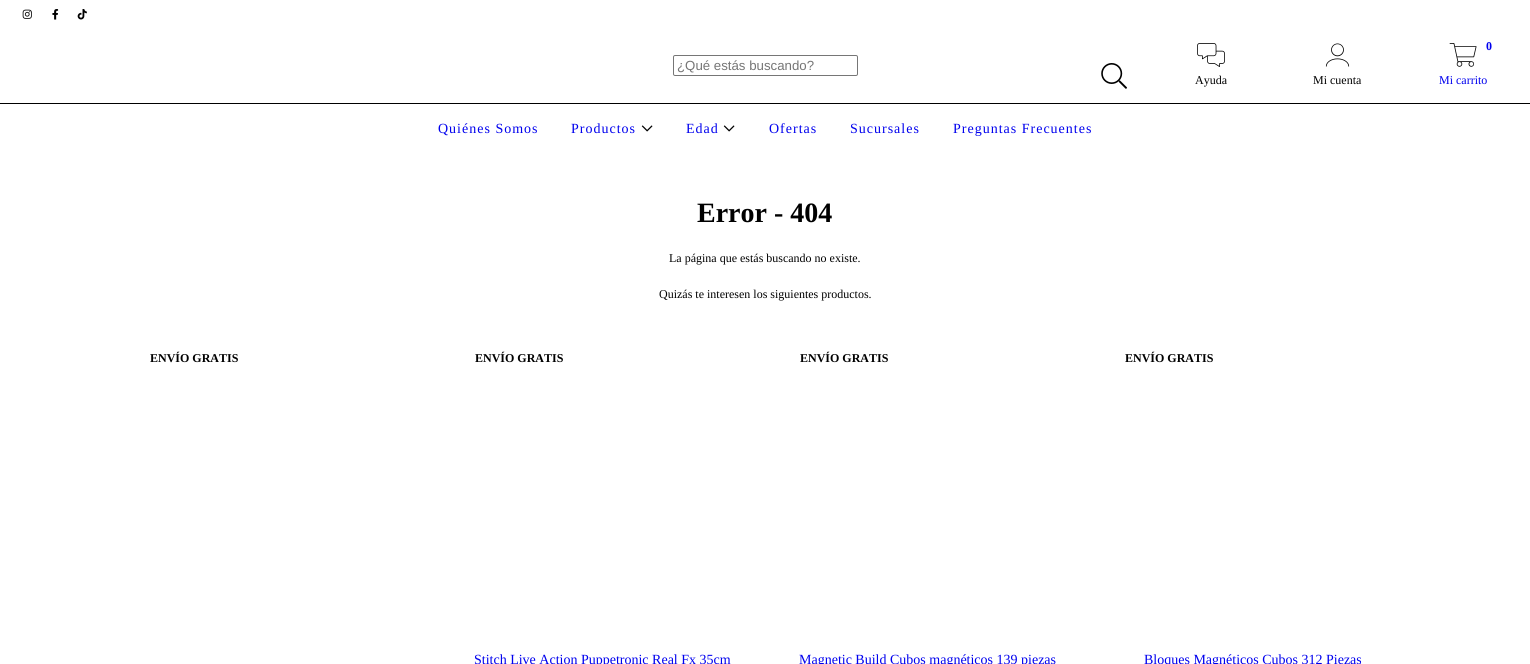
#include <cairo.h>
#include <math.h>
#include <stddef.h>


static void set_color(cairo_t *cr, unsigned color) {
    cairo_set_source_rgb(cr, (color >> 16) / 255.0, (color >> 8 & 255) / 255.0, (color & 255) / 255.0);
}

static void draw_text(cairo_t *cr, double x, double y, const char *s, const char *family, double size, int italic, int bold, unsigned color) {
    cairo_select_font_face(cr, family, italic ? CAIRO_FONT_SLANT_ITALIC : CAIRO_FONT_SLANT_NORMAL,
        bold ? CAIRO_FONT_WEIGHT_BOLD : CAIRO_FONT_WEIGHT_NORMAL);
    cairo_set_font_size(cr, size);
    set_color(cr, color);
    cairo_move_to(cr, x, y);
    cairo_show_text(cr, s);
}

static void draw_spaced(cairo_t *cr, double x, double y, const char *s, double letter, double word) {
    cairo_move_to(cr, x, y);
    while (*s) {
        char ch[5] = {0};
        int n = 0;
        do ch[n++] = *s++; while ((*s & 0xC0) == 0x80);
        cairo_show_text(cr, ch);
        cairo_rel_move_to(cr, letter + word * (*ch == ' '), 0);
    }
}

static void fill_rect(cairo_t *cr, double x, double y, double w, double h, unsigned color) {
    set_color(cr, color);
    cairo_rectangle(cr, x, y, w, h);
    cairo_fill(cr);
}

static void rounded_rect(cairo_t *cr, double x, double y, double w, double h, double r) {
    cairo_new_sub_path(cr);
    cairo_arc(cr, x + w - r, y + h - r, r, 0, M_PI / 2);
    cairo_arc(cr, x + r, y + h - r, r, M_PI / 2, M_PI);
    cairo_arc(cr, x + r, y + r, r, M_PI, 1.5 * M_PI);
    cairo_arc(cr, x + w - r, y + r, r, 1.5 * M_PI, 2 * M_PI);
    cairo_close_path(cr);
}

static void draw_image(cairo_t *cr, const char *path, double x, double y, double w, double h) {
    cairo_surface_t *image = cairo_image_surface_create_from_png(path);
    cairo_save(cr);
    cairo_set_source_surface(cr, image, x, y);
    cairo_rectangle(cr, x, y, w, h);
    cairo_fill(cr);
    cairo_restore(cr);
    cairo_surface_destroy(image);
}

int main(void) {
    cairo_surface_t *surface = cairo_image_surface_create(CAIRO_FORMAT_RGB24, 1530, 664);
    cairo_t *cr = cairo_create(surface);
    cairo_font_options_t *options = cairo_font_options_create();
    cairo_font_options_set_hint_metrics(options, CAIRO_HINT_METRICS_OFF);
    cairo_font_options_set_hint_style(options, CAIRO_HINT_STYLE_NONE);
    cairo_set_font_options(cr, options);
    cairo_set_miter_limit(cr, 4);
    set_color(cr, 0xFFFFFF);
    cairo_paint(cr);
    draw_image(cr, "assets/img1.png", 22, 9, 10, 10);
    draw_image(cr, "assets/img2.png", 52, 9, 7, 11);
    draw_image(cr, "assets/img3.png", 77, 9, 10, 11);
    rounded_rect(cr, 673.5, 55.5, 184, 20, 1.5);
    set_color(cr, 0x767676);
    cairo_set_line_width(cr, 1);
    cairo_stroke(cr);
    draw_text(cr, 677, 70, "¿Qué estás buscando?", "Liberation Sans", 13.25, 0, 0, 0x757575);
    draw_image(cr, "assets/img4.png", 1101, 63, 26, 26);
    draw_image(cr, "assets/img5.png", 1197, 43, 28, 24);
    draw_text(cr, 1195, 84, "Ayuda", "Liberation Serif", 12, 0, 0, 0x000000);
    draw_image(cr, "assets/img6.png", 1325, 43, 25, 24);
    draw_text(cr, 1313, 84, "Mi cuenta", "Liberation Serif", 12, 0, 0, 0x000000);
    draw_image(cr, "assets/img7.png", 1449, 43, 28, 24);
    draw_text(cr, 1486, 50, "0", "Liberation Serif", 12, 0, 1, 0x0000EE);
    draw_text(cr, 1439, 84, "Mi carrito", "Liberation Serif", 12, 0, 0, 0x0000EE);
    fill_rect(cr, 0, 103, 1530, 1, 0x000000);
    cairo_set_font_size(cr, 14);
    set_color(cr, 0x0000EE);
    draw_spaced(cr, 438, 133, "Quiénes Somos", 1, 0);
    draw_spaced(cr, 571, 133, "Productos", 1, 0);
    draw_image(cr, "assets/img8.png", 641, 125, 12, 7);
    draw_spaced(cr, 686, 133, "Edad", 1, 0);
    draw_image(cr, "assets/img8.png", 723, 125, 12, 7);
    draw_spaced(cr, 769, 133, "Ofertas", 1, 0);
    draw_spaced(cr, 850, 133, "Sucursales", 1, 0);
    draw_spaced(cr, 953, 133, "Preguntas Frecuentes", 1, 0);
    draw_text(cr, 697, 222, "Error - 404", "Liberation Serif", 28, 0, 1, 0x000000);
    draw_text(cr, 669, 262, "La página que estás buscando no existe.", "Liberation Serif", 12, 0, 0, 0x000000);
    draw_text(cr, 659, 298, "Quizás te interesen los siguientes productos.", "Liberation Serif", 12, 0, 0, 0x000000);
    draw_text(cr, 150, 362, "ENVÍO GRATIS", "Liberation Serif", 12, 0, 1, 0x000000);
    draw_text(cr, 475, 362, "ENVÍO GRATIS", "Liberation Serif", 12, 0, 1, 0x000000);
    draw_text(cr, 474, 664, "Stitch Live Action Puppetronic Real Fx 35cm", "Liberation Serif", 14, 0, 0, 0x0000EE);
    draw_text(cr, 800, 362, "ENVÍO GRATIS", "Liberation Serif", 12, 0, 1, 0x000000);
    draw_text(cr, 799, 664, "Magnetic Build Cubos magnéticos 139 piezas", "Liberation Serif", 14, 0, 0, 0x0000EE);
    draw_text(cr, 1125, 362, "ENVÍO GRATIS", "Liberation Serif", 12, 0, 1, 0x000000);
    draw_text(cr, 1144, 664, "Bloques Magnéticos Cubos 312 Piezas", "Liberation Serif", 14, 0, 0, 0x0000EE);
    cairo_surface_write_to_png(surface, "output.png");
    cairo_font_options_destroy(options);
    cairo_destroy(cr);
    cairo_surface_destroy(surface);
    return 0;
}
